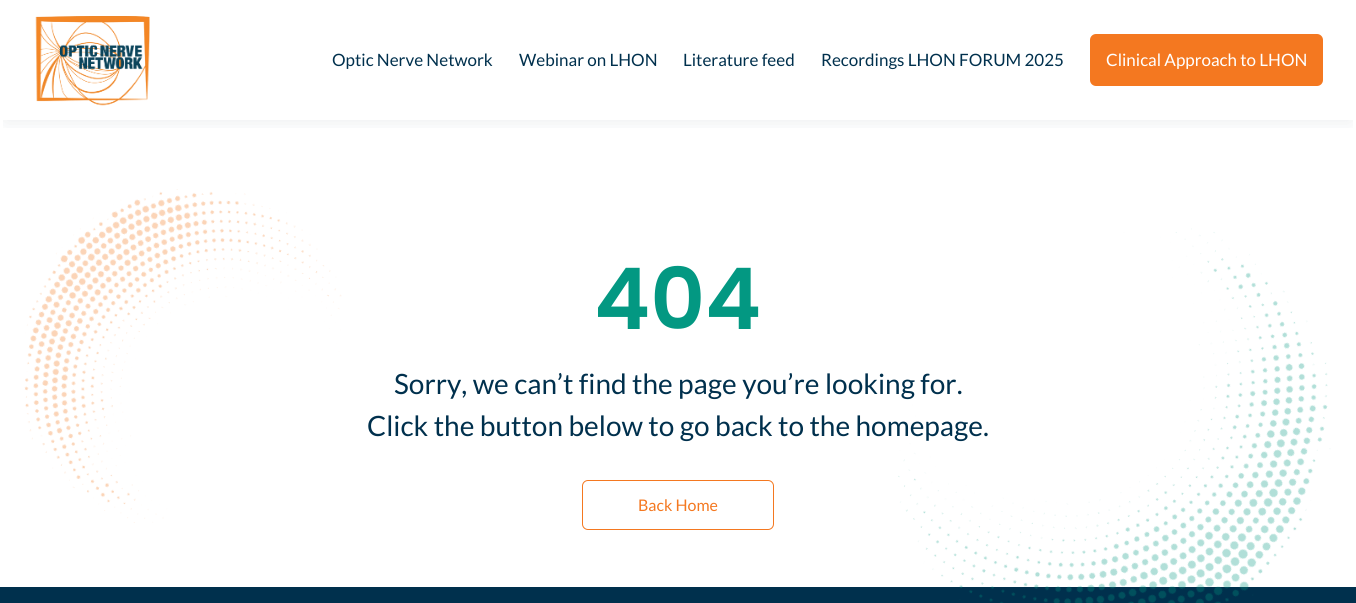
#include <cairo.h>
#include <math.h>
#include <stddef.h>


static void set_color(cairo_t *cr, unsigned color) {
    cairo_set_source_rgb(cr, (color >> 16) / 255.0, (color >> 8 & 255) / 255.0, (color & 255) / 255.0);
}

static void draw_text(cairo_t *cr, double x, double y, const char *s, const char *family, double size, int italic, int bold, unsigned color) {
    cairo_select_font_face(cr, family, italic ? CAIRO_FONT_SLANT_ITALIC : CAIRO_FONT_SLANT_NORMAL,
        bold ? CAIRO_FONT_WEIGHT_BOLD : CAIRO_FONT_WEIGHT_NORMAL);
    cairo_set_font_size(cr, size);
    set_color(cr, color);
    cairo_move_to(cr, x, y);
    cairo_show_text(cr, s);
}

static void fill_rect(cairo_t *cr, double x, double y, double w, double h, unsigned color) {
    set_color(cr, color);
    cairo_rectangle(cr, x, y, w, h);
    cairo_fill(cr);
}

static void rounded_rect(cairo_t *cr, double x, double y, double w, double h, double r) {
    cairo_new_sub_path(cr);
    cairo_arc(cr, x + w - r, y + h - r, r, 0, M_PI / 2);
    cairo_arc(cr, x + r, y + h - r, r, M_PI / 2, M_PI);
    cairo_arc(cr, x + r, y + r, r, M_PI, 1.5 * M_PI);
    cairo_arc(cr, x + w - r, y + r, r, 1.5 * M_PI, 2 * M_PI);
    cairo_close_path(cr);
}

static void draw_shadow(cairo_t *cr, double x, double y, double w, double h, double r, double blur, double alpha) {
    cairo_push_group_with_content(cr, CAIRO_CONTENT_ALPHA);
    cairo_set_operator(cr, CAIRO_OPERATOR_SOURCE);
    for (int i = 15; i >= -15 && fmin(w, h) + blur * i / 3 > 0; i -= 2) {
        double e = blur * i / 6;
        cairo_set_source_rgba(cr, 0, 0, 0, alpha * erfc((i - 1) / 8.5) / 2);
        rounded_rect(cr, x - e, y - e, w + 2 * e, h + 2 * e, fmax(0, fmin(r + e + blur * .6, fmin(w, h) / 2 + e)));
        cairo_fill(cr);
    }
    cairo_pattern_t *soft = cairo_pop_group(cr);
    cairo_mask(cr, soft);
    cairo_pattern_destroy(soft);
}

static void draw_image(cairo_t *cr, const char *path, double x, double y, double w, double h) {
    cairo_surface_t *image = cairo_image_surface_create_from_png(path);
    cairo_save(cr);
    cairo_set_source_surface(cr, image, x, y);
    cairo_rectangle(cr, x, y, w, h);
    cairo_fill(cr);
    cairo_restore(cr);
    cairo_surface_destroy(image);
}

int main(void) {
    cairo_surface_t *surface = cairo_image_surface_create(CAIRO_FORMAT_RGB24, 1356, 603);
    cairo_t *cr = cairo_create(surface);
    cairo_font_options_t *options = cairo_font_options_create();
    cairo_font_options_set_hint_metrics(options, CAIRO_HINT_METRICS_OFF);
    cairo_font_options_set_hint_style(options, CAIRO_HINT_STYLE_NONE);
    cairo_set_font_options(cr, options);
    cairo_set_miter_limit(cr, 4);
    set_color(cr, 0xFFFFFF);
    cairo_paint(cr);
    cairo_save(cr);
    cairo_rectangle(cr, 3, 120, 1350, 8);
    cairo_clip(cr);
    set_color(cr, 0x153041);
    draw_shadow(cr, 5, 10, 1346, 110, 0, 10, 0.1);
    cairo_restore(cr);
    draw_image(cr, "assets/img1.png", 35, 16, 115, 90);
    draw_text(cr, 332, 66, "Optic Nerve Network", "Lato", 17, 0, 0, 0x00304D);
    draw_text(cr, 519, 66, "Webinar on LHON", "Lato", 17, 0, 0, 0x00304D);
    draw_text(cr, 683, 66, "Literature feed", "Lato", 17, 0, 0, 0x00304D);
    draw_text(cr, 821, 66, "Recordings LHON FORUM 2025", "Lato", 17, 0, 0, 0x00304D);
    set_color(cr, 0xF47820);
    rounded_rect(cr, 1090, 34, 233, 52, 6);
    cairo_fill(cr);
    draw_text(cr, 1106, 66, "Clinical Approach to LHON", "Lato", 17, 0, 0, 0xFFFFFF);
    draw_image(cr, "assets/img2.png", 24, 189, 318, 334);
    draw_text(cr, 594, 329, "404", "Poppins SemiBold", 85, 0, 0, 0x039882);
    draw_text(cr, 394, 394, "Sorry, we can’t find the page you’re looking for.", "Lato", 28, 0, 0, 0x00304D);
    draw_text(cr, 367, 436, "Click the button below to go back to the homepage.", "Lato", 28, 0, 0, 0x00304D);
    fill_rect(cr, 0, 587, 1356, 16, 0x00304D);
    draw_image(cr, "assets/img3.png", 898, 228, 433, 375);
    rounded_rect(cr, 582.5, 480.5, 191, 49, 5.5);
    set_color(cr, 0xF47820);
    cairo_set_line_width(cr, 1);
    cairo_stroke(cr);
    draw_text(cr, 638, 511, "Back Home", "Lato", 16, 0, 0, 0xF47820);
    cairo_surface_write_to_png(surface, "output.png");
    cairo_font_options_destroy(options);
    cairo_destroy(cr);
    cairo_surface_destroy(surface);
    return 0;
}
